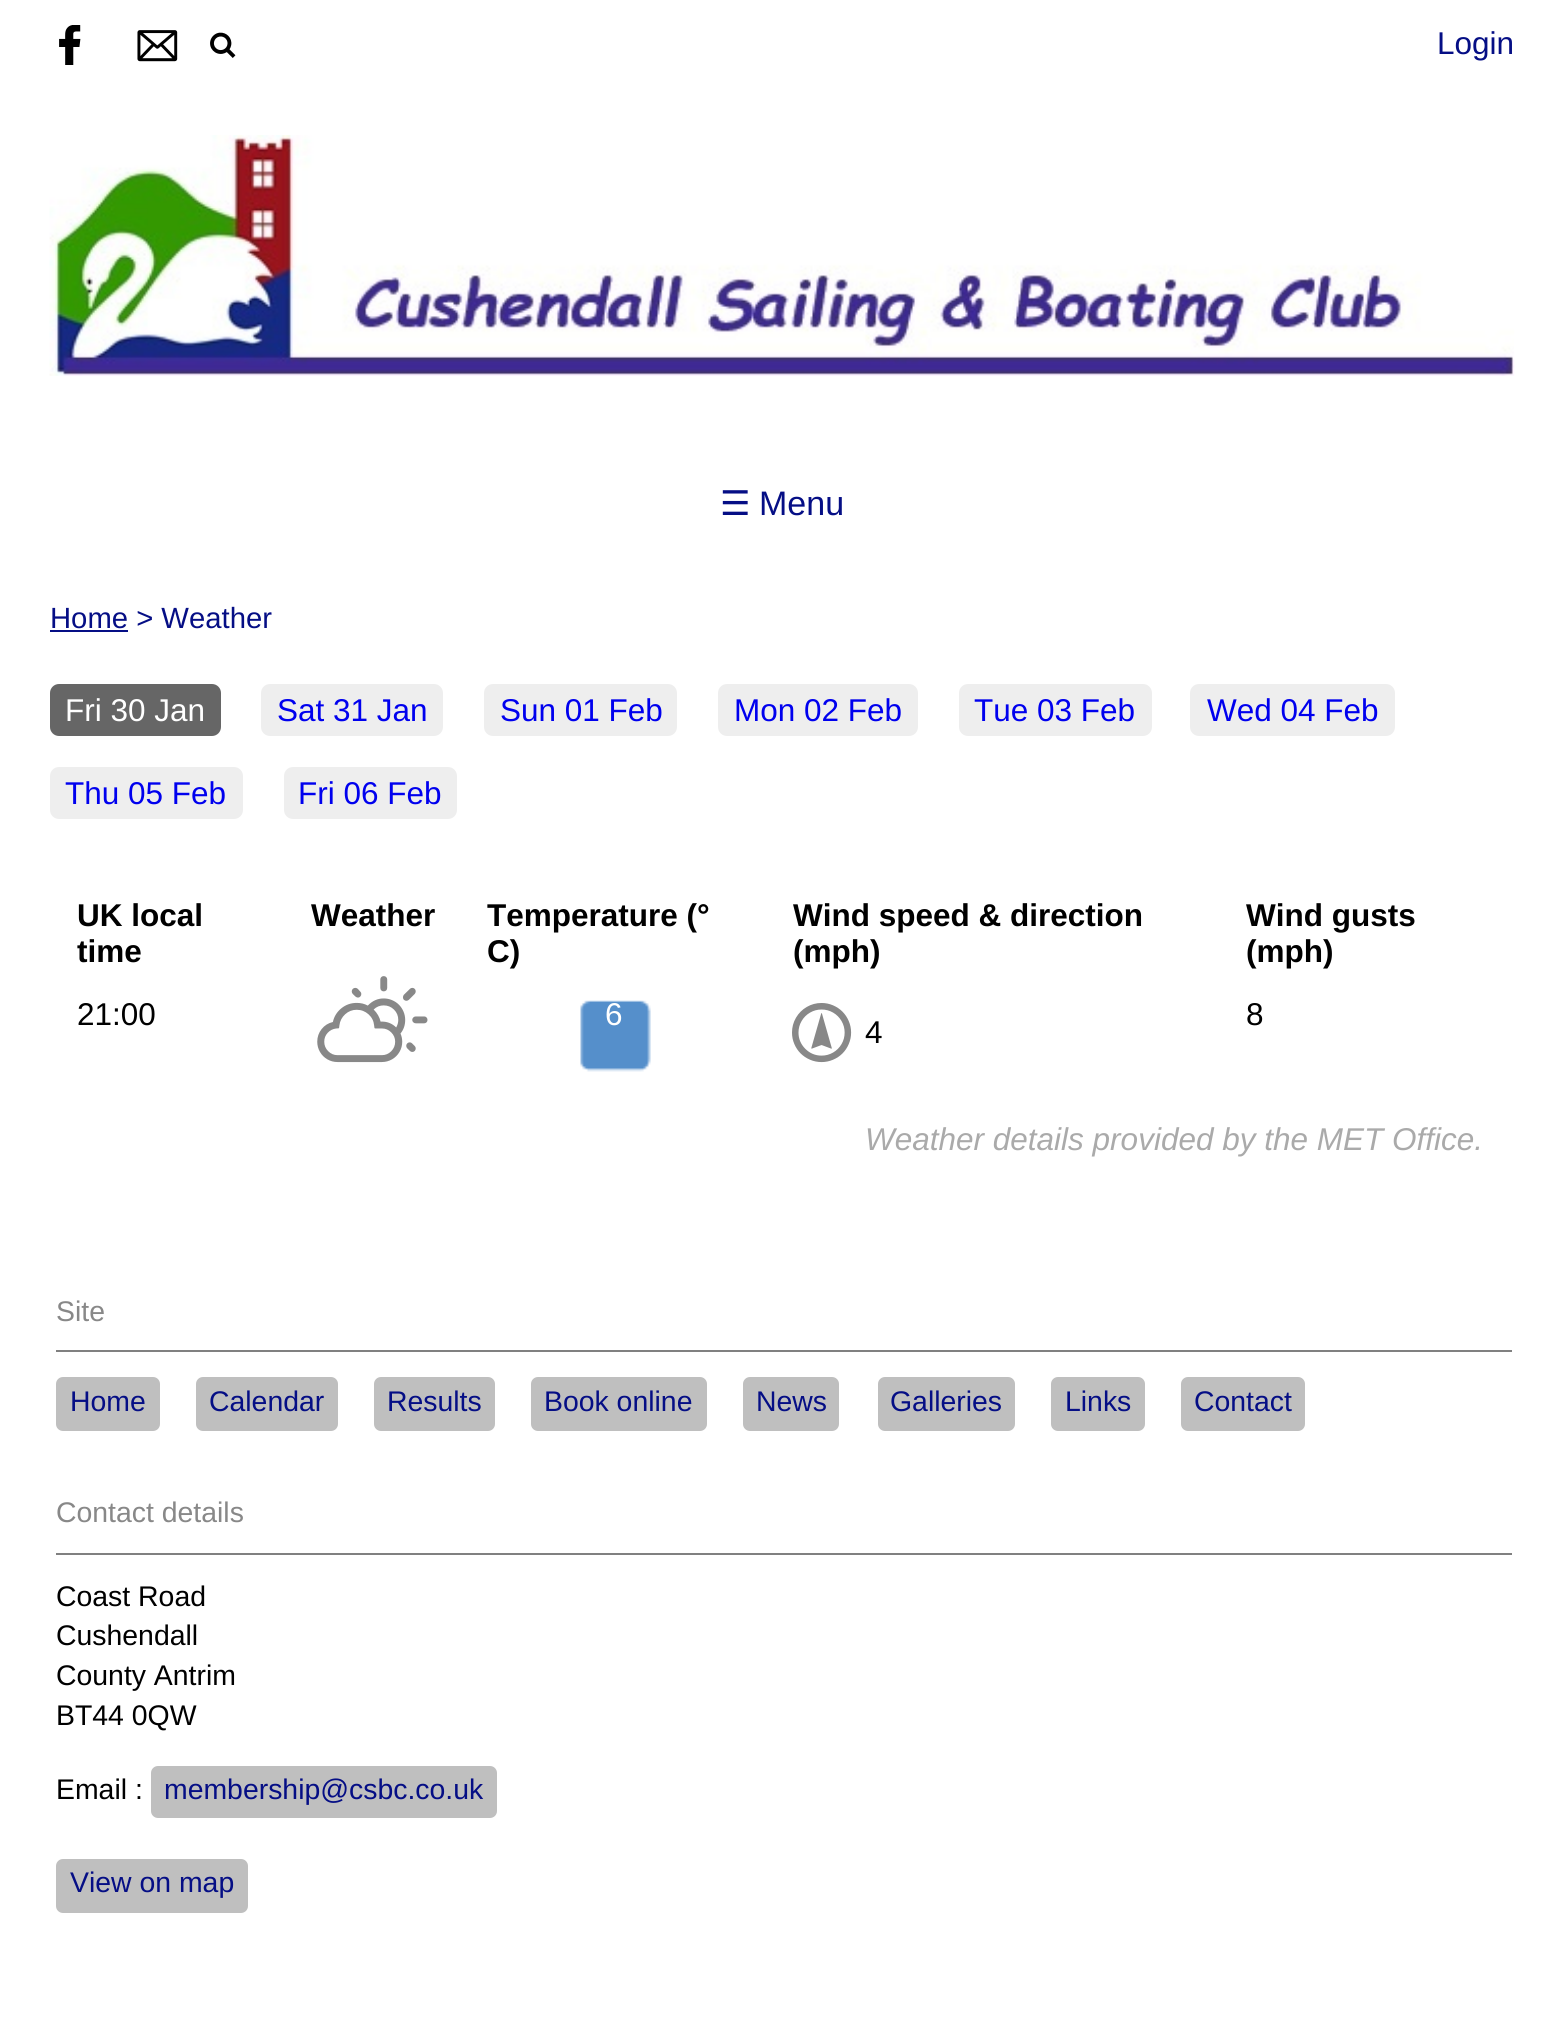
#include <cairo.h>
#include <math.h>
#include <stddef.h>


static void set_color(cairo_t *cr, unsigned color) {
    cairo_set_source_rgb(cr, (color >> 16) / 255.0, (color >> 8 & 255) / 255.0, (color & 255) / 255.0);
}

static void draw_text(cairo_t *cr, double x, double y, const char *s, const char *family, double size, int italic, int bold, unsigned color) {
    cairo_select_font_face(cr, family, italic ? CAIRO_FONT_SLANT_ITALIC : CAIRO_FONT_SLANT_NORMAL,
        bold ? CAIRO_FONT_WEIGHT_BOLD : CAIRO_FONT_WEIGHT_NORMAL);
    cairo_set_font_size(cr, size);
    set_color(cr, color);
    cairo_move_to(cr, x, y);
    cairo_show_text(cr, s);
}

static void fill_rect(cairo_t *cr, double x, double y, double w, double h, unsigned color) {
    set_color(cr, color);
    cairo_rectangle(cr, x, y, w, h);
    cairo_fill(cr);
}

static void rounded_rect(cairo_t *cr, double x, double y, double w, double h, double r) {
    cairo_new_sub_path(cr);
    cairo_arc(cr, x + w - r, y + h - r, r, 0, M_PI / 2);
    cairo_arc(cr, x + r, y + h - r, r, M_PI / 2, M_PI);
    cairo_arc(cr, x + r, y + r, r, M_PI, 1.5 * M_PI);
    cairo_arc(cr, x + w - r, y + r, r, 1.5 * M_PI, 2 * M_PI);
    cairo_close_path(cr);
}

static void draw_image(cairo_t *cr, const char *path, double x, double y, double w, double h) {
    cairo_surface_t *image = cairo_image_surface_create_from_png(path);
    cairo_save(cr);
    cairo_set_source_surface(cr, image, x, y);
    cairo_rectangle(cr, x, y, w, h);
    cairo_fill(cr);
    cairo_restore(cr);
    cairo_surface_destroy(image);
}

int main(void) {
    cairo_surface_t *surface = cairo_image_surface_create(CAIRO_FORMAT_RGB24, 1562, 2024);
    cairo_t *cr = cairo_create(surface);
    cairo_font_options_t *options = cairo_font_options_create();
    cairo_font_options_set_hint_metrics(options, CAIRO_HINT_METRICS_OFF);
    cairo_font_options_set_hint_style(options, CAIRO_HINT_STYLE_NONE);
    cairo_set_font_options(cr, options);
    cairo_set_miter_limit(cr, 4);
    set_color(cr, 0xFFFFFF);
    cairo_paint(cr);
    draw_image(cr, "assets/img1.png", 59, 25, 22, 40);
    draw_image(cr, "assets/img2.png", 137, 30, 41, 32);
    draw_image(cr, "assets/img3.png", 210, 32, 26, 26);
    draw_text(cr, 1437, 54, "Login", "Liberation Sans", 31.5, 0, 0, 0x050E85);
    draw_image(cr, "assets/img4.png", 49, 135, 1466, 241);
    draw_text(cr, 720, 515, "☰", "DejaVu Sans", 34, 0, 0, 0x050E85);
    draw_text(cr, 759, 515, "Menu", "Liberation Sans", 34, 0, 0, 0x050E85);
    draw_text(cr, 50, 628, "Home > Weather", "Liberation Sans", 29.25, 0, 0, 0x050E85);
    fill_rect(cr, 50, 630, 78, 2, 0x050E85);
    set_color(cr, 0x666666);
    rounded_rect(cr, 50, 684, 171, 52, 9);
    cairo_fill(cr);
    draw_text(cr, 65, 721, "Fri 30 Jan", "Liberation Sans", 31.5, 0, 0, 0xFFFFFF);
    set_color(cr, 0xEEEEEE);
    rounded_rect(cr, 261, 684, 182, 52, 9);
    cairo_fill(cr);
    draw_text(cr, 277, 721, "Sat 31 Jan", "Liberation Sans", 31.5, 0, 0, 0x0000EE);
    set_color(cr, 0xEEEEEE);
    rounded_rect(cr, 484, 684, 193, 52, 9);
    cairo_fill(cr);
    draw_text(cr, 500, 721, "Sun 01 Feb", "Liberation Sans", 31.5, 0, 0, 0x0000EE);
    set_color(cr, 0xEEEEEE);
    rounded_rect(cr, 718, 684, 200, 52, 9);
    cairo_fill(cr);
    draw_text(cr, 734, 721, "Mon 02 Feb", "Liberation Sans", 31.5, 0, 0, 0x0000EE);
    set_color(cr, 0xEEEEEE);
    rounded_rect(cr, 959, 684, 193, 52, 9);
    cairo_fill(cr);
    draw_text(cr, 974, 721, "Tue 03 Feb", "Liberation Sans", 31.5, 0, 0, 0x0000EE);
    set_color(cr, 0xEEEEEE);
    rounded_rect(cr, 1190, 684, 205, 52, 9);
    cairo_fill(cr);
    draw_text(cr, 1207, 721, "Wed 04 Feb", "Liberation Sans", 31.5, 0, 0, 0x0000EE);
    set_color(cr, 0xEEEEEE);
    rounded_rect(cr, 50, 767, 193, 52, 9);
    cairo_fill(cr);
    draw_text(cr, 65, 804, "Thu 05 Feb", "Liberation Sans", 31.5, 0, 0, 0x0000EE);
    set_color(cr, 0xEEEEEE);
    rounded_rect(cr, 284, 767, 173, 52, 9);
    cairo_fill(cr);
    draw_text(cr, 298, 804, "Fri 06 Feb", "Liberation Sans", 31.5, 0, 0, 0x0000EE);
    draw_text(cr, 77, 926, "UK local", "Liberation Sans", 31.5, 0, 1, 0x000000);
    draw_text(cr, 77, 962, "time", "Liberation Sans", 31.5, 0, 1, 0x000000);
    draw_text(cr, 311, 926, "Weather", "Liberation Sans", 31.5, 0, 1, 0x000000);
    draw_text(cr, 487, 926, "Temperature (°", "Liberation Sans", 31.5, 0, 1, 0x000000);
    draw_text(cr, 487, 962, "C)", "Liberation Sans", 31.5, 0, 1, 0x000000);
    draw_text(cr, 793, 926, "Wind speed & direction", "Liberation Sans", 31.5, 0, 1, 0x000000);
    draw_text(cr, 793, 962, "(mph)", "Liberation Sans", 31.5, 0, 1, 0x000000);
    draw_text(cr, 1246, 926, "Wind gusts", "Liberation Sans", 31.5, 0, 1, 0x000000);
    draw_text(cr, 1246, 962, "(mph)", "Liberation Sans", 31.5, 0, 1, 0x000000);
    draw_text(cr, 77, 1025, "21:00", "Liberation Sans", 31.5, 0, 0, 0x000000);
    draw_image(cr, "assets/img5.png", 317, 976, 111, 87);
    draw_image(cr, "assets/img6.png", 580, 1000, 71, 72);
    draw_text(cr, 605, 1025, "6", "Liberation Sans", 31.5, 0, 0, 0xFFFFFF);
    draw_text(cr, 1246, 1025, "8", "Liberation Sans", 31.5, 0, 0, 0x000000);
    draw_image(cr, "assets/img7.png", 792, 1003, 60, 60);
    draw_text(cr, 865, 1043, "4", "Liberation Sans", 31.5, 0, 0, 0x000000);
    draw_text(cr, 865, 1150, "Weather details provided by the MET Office.", "Liberation Sans", 31.5, 1, 0, 0xAAAAAA);
    fill_rect(cr, 56, 1350, 1456, 2, 0x808080);
    draw_text(cr, 56, 1321, "Site", "Liberation Sans", 28.4, 0, 0, 0x888888);
    set_color(cr, 0xBFBFBF);
    rounded_rect(cr, 56, 1377, 104, 54, 7);
    cairo_fill(cr);
    draw_text(cr, 70, 1411, "Home", "Liberation Sans", 28.4, 0, 0, 0x050E85);
    set_color(cr, 0xBFBFBF);
    rounded_rect(cr, 196, 1377, 142, 54, 7);
    cairo_fill(cr);
    draw_text(cr, 209, 1411, "Calendar", "Liberation Sans", 28.4, 0, 0, 0x050E85);
    set_color(cr, 0xBFBFBF);
    rounded_rect(cr, 374, 1377, 121, 54, 7);
    cairo_fill(cr);
    draw_text(cr, 387, 1411, "Results", "Liberation Sans", 28.4, 0, 0, 0x050E85);
    set_color(cr, 0xBFBFBF);
    rounded_rect(cr, 531, 1377, 176, 54, 7);
    cairo_fill(cr);
    draw_text(cr, 544, 1411, "Book online", "Liberation Sans", 28.4, 0, 0, 0x050E85);
    set_color(cr, 0xBFBFBF);
    rounded_rect(cr, 743, 1377, 96, 54, 7);
    cairo_fill(cr);
    draw_text(cr, 756, 1411, "News", "Liberation Sans", 28.4, 0, 0, 0x050E85);
    set_color(cr, 0xBFBFBF);
    rounded_rect(cr, 878, 1377, 137, 54, 7);
    cairo_fill(cr);
    draw_text(cr, 890, 1411, "Galleries", "Liberation Sans", 28.4, 0, 0, 0x050E85);
    set_color(cr, 0xBFBFBF);
    rounded_rect(cr, 1051, 1377, 94, 54, 7);
    cairo_fill(cr);
    draw_text(cr, 1065, 1411, "Links", "Liberation Sans", 28.4, 0, 0, 0x050E85);
    set_color(cr, 0xBFBFBF);
    rounded_rect(cr, 1181, 1377, 124, 54, 7);
    cairo_fill(cr);
    draw_text(cr, 1194, 1411, "Contact", "Liberation Sans", 28.4, 0, 0, 0x050E85);
    fill_rect(cr, 56, 1553, 1456, 2, 0x808080);
    draw_text(cr, 56, 1522, "Contact details", "Liberation Sans", 28.4, 0, 0, 0x888888);
    draw_text(cr, 56, 1606, "Coast Road", "Liberation Sans", 28.4, 0, 0, 0x000000);
    draw_text(cr, 56, 1645, "Cushendall", "Liberation Sans", 28.4, 0, 0, 0x000000);
    draw_text(cr, 56, 1685, "County Antrim", "Liberation Sans", 28.4, 0, 0, 0x000000);
    draw_text(cr, 56, 1725, "BT44 0QW", "Liberation Sans", 28.4, 0, 0, 0x000000);
    draw_text(cr, 56, 1799, "Email :", "Liberation Sans", 28.4, 0, 0, 0x000000);
    set_color(cr, 0xBFBFBF);
    rounded_rect(cr, 151, 1766, 346, 52, 7);
    cairo_fill(cr);
    draw_text(cr, 164, 1799, "membership@csbc.co.uk", "Liberation Sans", 28.4, 0, 0, 0x050E85);
    set_color(cr, 0xBFBFBF);
    rounded_rect(cr, 56, 1859, 192, 54, 7);
    cairo_fill(cr);
    draw_text(cr, 70, 1892, "View on map", "Liberation Sans", 28.4, 0, 0, 0x050E85);
    cairo_surface_write_to_png(surface, "output.png");
    cairo_font_options_destroy(options);
    cairo_destroy(cr);
    cairo_surface_destroy(surface);
    return 0;
}
